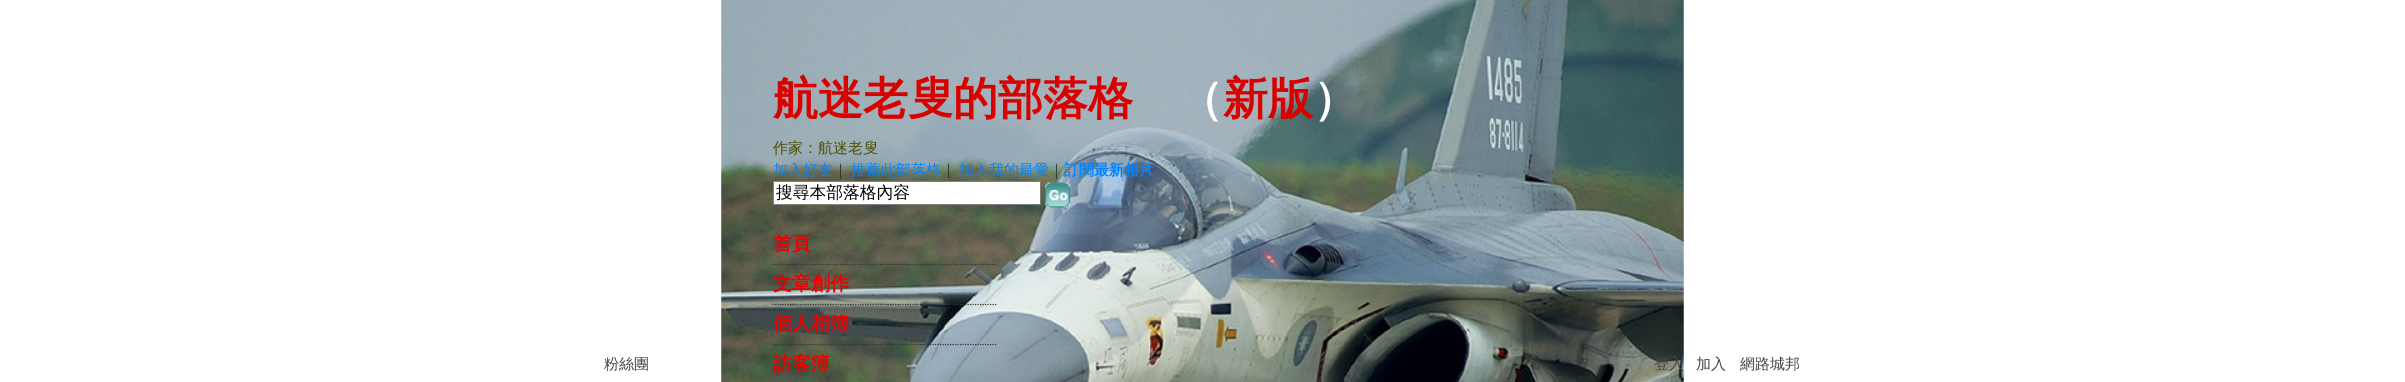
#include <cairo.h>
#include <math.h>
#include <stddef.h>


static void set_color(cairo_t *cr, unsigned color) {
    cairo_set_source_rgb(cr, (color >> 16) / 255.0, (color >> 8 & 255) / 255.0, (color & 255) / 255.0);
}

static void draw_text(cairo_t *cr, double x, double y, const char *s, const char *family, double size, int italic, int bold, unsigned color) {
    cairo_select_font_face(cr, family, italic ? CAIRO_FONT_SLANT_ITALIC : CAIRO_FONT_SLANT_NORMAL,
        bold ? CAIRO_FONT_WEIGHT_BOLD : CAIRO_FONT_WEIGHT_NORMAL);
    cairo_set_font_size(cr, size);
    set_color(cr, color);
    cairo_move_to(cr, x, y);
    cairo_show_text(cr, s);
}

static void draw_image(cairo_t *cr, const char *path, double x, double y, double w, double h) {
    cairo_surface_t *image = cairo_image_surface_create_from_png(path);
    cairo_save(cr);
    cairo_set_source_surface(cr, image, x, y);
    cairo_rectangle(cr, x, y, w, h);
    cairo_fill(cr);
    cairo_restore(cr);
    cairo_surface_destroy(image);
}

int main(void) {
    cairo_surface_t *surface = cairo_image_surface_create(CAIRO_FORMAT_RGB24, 2405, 382);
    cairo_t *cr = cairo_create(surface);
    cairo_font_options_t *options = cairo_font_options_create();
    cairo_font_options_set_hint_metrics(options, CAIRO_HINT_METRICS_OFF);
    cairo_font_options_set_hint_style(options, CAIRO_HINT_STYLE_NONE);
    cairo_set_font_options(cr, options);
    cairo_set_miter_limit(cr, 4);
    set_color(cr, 0xFFFFFF);
    cairo_paint(cr);
    draw_image(cr, "assets/img1.png", 721, 0, 963, 382);
    draw_text(cr, 773, 114, "航迷老叟的部落格", "WenQuanYi Zen Hei", 45, 0, 1, 0xD90000);
    draw_text(cr, 1178, 114, "（", "WenQuanYi Zen Hei", 45, 0, 1, 0xFFFFFF);
    draw_text(cr, 1223, 114, "新版", "WenQuanYi Zen Hei", 45, 0, 1, 0xD90000);
    draw_text(cr, 1313, 114, "）", "WenQuanYi Zen Hei", 45, 0, 1, 0xFFFFFF);
    draw_text(cr, 773, 153, "作家：航迷老叟", "WenQuanYi Zen Hei Medium", 15, 0, 0, 0x4D4D00);
    draw_text(cr, 773, 175, "加入好友", "WenQuanYi Zen Hei Medium", 15, 0, 0, 0x0084FF);
    draw_text(cr, 833, 175, "｜", "WenQuanYi Zen Hei Medium", 15, 0, 0, 0x333333);
    draw_text(cr, 851, 175, "推薦此部落格", "WenQuanYi Zen Hei Medium", 15, 0, 0, 0x0084FF);
    draw_text(cr, 941, 175, "｜", "WenQuanYi Zen Hei Medium", 15, 0, 0, 0x333333);
    draw_text(cr, 959, 175, "加入我的最愛", "WenQuanYi Zen Hei Medium", 15, 0, 0, 0x0084FF);
    draw_text(cr, 1049, 175, "｜", "WenQuanYi Zen Hei Medium", 15, 0, 0, 0x333333);
    draw_text(cr, 1064, 175, "訂閱最新相片", "WenQuanYi Zen Hei", 15, 0, 1, 0x0084FF);
    set_color(cr, 0xFFFFFF);
    cairo_rectangle(cr, 773.5, 181.5, 267, 23);
    cairo_fill_preserve(cr);
    set_color(cr, 0x808080);
    cairo_set_line_width(cr, 1);
    cairo_stroke(cr);
    draw_text(cr, 776, 198, "搜尋本部落格內容", "WenQuanYi Zen Hei Medium", 16.75, 0, 0, 0x000000);
    draw_image(cr, "assets/img2.png", 1045, 182, 25, 26);
    cairo_new_path(cr);
    cairo_move_to(cr, 772.5, 264.5);
    cairo_line_to(cr, 997.5, 264.5);
    set_color(cr, 0x333333);
    cairo_set_line_width(cr, 1.2);
    cairo_set_dash(cr, (double[]){1.25, 1.25}, 2, 0);
    cairo_stroke(cr);
    draw_text(cr, 773, 250, "首頁", "WenQuanYi Zen Hei", 19, 0, 1, 0xEC0000);
    cairo_new_path(cr);
    cairo_move_to(cr, 772.5, 304.5);
    cairo_line_to(cr, 997.5, 304.5);
    set_color(cr, 0x333333);
    cairo_stroke(cr);
    draw_text(cr, 773, 290, "文章創作", "WenQuanYi Zen Hei", 19, 0, 1, 0xEC0000);
    cairo_new_path(cr);
    cairo_move_to(cr, 772.5, 344.5);
    cairo_line_to(cr, 997.5, 344.5);
    set_color(cr, 0x333333);
    cairo_stroke(cr);
    draw_text(cr, 773, 330, "個人相簿", "WenQuanYi Zen Hei", 19, 0, 1, 0xEC0000);
    draw_text(cr, 773, 370, "訪客簿", "WenQuanYi Zen Hei", 19, 0, 1, 0xEC0000);
    draw_text(cr, 604, 369, "粉絲團", "WenQuanYi Zen Hei Medium", 15, 0, 0, 0x444444);
    draw_text(cr, 1654, 369, "登入", "WenQuanYi Zen Hei Medium", 15, 0, 0, 0x444444);
    draw_text(cr, 1696, 369, "加入", "WenQuanYi Zen Hei Medium", 15, 0, 0, 0x444444);
    draw_text(cr, 1740, 369, "網路城邦", "WenQuanYi Zen Hei Medium", 15, 0, 0, 0x444444);
    cairo_surface_write_to_png(surface, "output.png");
    cairo_font_options_destroy(options);
    cairo_destroy(cr);
    cairo_surface_destroy(surface);
    return 0;
}
